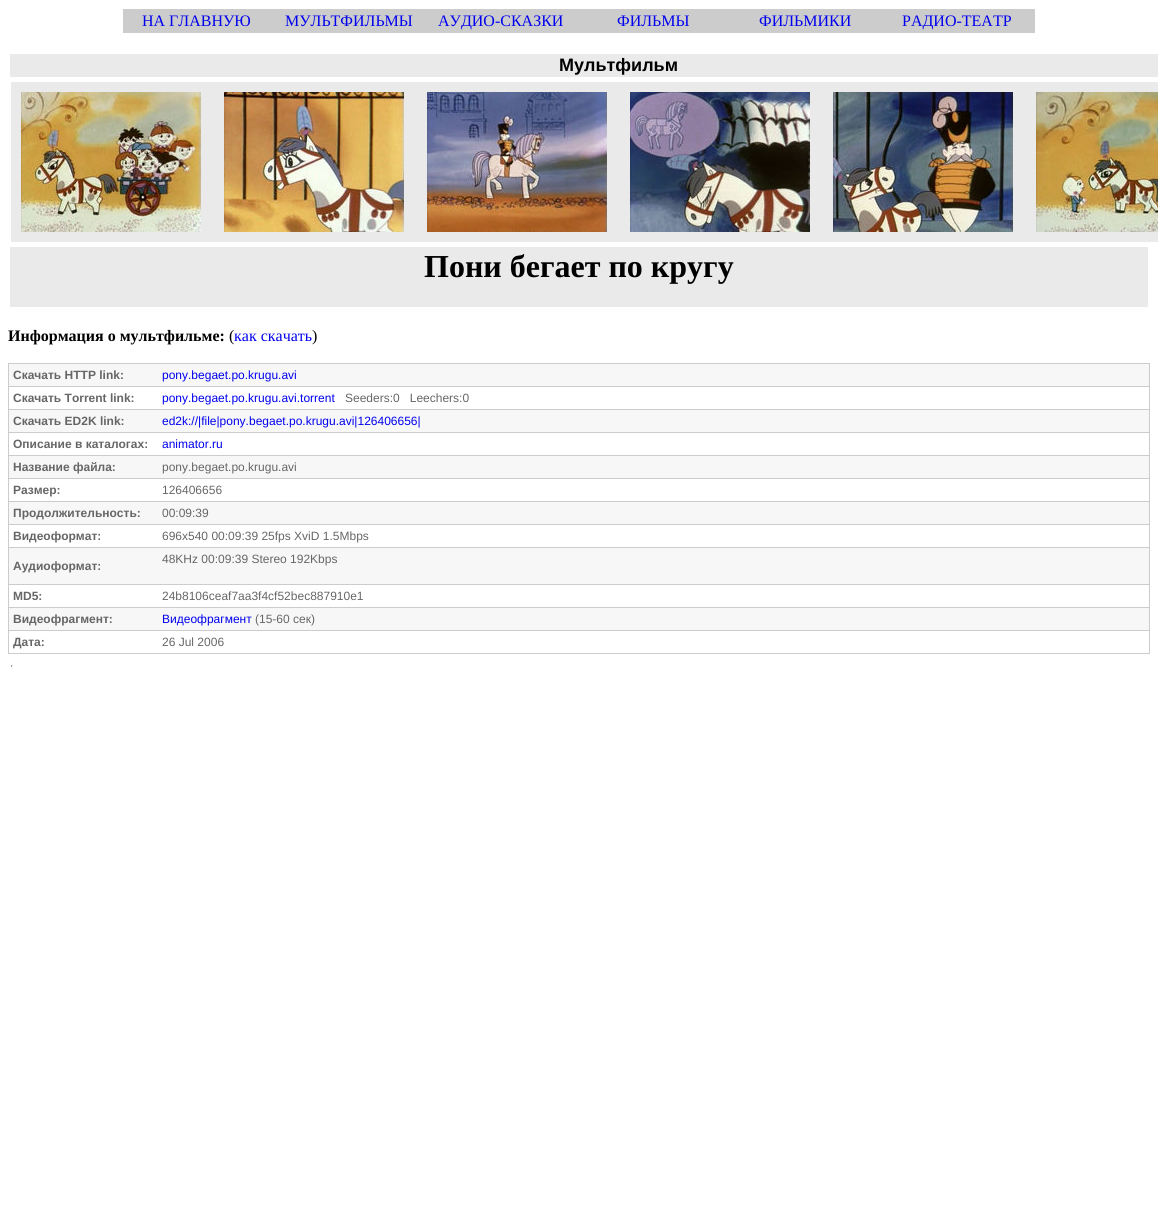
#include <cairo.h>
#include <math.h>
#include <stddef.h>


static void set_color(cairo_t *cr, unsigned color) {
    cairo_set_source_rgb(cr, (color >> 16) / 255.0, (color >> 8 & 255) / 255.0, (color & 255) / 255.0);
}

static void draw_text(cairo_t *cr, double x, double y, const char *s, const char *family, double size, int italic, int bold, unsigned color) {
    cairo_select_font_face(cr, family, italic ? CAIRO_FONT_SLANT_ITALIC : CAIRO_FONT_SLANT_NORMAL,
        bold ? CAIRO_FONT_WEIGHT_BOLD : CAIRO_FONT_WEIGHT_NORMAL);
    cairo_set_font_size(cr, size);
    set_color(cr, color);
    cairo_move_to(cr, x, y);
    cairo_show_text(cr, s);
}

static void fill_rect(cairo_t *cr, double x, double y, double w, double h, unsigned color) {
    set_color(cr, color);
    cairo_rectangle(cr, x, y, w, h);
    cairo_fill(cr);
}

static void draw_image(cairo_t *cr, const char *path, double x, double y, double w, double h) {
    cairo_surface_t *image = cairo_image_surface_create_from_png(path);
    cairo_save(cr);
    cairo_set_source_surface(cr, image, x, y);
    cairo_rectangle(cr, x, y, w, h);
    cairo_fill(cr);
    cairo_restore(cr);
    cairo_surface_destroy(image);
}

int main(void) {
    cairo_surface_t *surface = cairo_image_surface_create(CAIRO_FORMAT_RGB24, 1158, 1216);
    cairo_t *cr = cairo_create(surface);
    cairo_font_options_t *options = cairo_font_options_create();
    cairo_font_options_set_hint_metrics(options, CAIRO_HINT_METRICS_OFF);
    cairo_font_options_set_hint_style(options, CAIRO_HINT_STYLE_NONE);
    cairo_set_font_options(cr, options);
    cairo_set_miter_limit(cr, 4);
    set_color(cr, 0xFFFFFF);
    cairo_paint(cr);
    fill_rect(cr, 123, 9, 912, 24, 0xCCCCCC);
    draw_text(cr, 142, 26, "НА ГЛАВНУЮ", "Liberation Serif", 16, 0, 0, 0x0000EE);
    draw_text(cr, 285, 26, "МУЛЬТФИЛЬМЫ", "Liberation Serif", 16, 0, 0, 0x0000EE);
    draw_text(cr, 438, 26, "АУДИО-СКАЗКИ", "Liberation Serif", 16, 0, 0, 0x0000EE);
    draw_text(cr, 617, 26, "ФИЛЬМЫ", "Liberation Serif", 16, 0, 0, 0x0000EE);
    draw_text(cr, 759, 26, "ФИЛЬМИКИ", "Liberation Serif", 16, 0, 0, 0x0000EE);
    draw_text(cr, 902, 26, "РАДИО-ТЕАТР", "Liberation Serif", 16, 0, 0, 0x0000EE);
    fill_rect(cr, 10, 54, 1148, 23, 0xEAEAEA);
    draw_text(cr, 559, 71, "Мультфильм", "Liberation Sans", 18, 0, 1, 0x000000);
    fill_rect(cr, 11, 82, 1147, 160, 0xEAEAEA);
    draw_image(cr, "assets/img1.png", 21, 92, 180, 140);
    draw_image(cr, "assets/img2.png", 224, 92, 180, 140);
    draw_image(cr, "assets/img3.png", 427, 92, 180, 140);
    draw_image(cr, "assets/img4.png", 630, 92, 180, 140);
    draw_image(cr, "assets/img5.png", 833, 92, 180, 140);
    draw_image(cr, "assets/img6.png", 1036, 92, 122, 140);
    fill_rect(cr, 10, 247, 1138, 60, 0xEAEAEA);
    draw_text(cr, 424, 277, "Пони бегает по кругу", "Liberation Serif", 32, 0, 1, 0x000000);
    draw_text(cr, 8, 341, "Информация о мультфильме:", "Liberation Serif", 16, 0, 1, 0x000000);
    draw_text(cr, 229, 341, "(", "Liberation Serif", 16, 0, 0, 0x000000);
    draw_text(cr, 234, 341, "как скачать", "Liberation Serif", 16, 0, 0, 0x0000EE);
    draw_text(cr, 312, 341, ")", "Liberation Serif", 16, 0, 0, 0x000000);
    fill_rect(cr, 8, 363, 1142, 291, 0xCCCCCC);
    fill_rect(cr, 9, 364, 1140, 22, 0xF7F7F7);
    draw_text(cr, 13, 379, "Скачать HTTP link:", "Liberation Sans", 12, 0, 1, 0x666666);
    draw_text(cr, 162, 379, "pony.begaet.po.krugu.avi", "Liberation Sans", 12, 0, 0, 0x0000EE);
    fill_rect(cr, 9, 387, 1140, 22, 0xFFFFFF);
    draw_text(cr, 13, 402, "Скачать Torrent link:", "Liberation Sans", 12, 0, 1, 0x666666);
    draw_text(cr, 162, 402, "pony.begaet.po.krugu.avi.torrent", "Liberation Sans", 12, 0, 0, 0x0000EE);
    draw_text(cr, 345, 402, "Seeders:0   Leechers:0", "Liberation Sans", 12, 0, 0, 0x666666);
    fill_rect(cr, 9, 410, 1140, 22, 0xF7F7F7);
    draw_text(cr, 13, 425, "Скачать ED2K link:", "Liberation Sans", 12, 0, 1, 0x666666);
    draw_text(cr, 162, 425, "ed2k://|file|pony.begaet.po.krugu.avi|126406656|", "Liberation Sans", 12, 0, 0, 0x0000EE);
    fill_rect(cr, 9, 433, 1140, 22, 0xFFFFFF);
    draw_text(cr, 13, 448, "Описание в каталогах:", "Liberation Sans", 12, 0, 1, 0x666666);
    draw_text(cr, 162, 448, "animator.ru", "Liberation Sans", 12, 0, 0, 0x0000EE);
    fill_rect(cr, 9, 456, 1140, 22, 0xF7F7F7);
    draw_text(cr, 13, 471, "Название файла:", "Liberation Sans", 12, 0, 1, 0x666666);
    draw_text(cr, 162, 471, "pony.begaet.po.krugu.avi", "Liberation Sans", 12, 0, 0, 0x666666);
    fill_rect(cr, 9, 479, 1140, 22, 0xFFFFFF);
    draw_text(cr, 13, 494, "Размер:", "Liberation Sans", 12, 0, 1, 0x666666);
    draw_text(cr, 162, 494, "126406656", "Liberation Sans", 12, 0, 0, 0x666666);
    fill_rect(cr, 9, 502, 1140, 22, 0xF7F7F7);
    draw_text(cr, 13, 517, "Продолжительность:", "Liberation Sans", 12, 0, 1, 0x666666);
    draw_text(cr, 162, 517, "00:09:39", "Liberation Sans", 12, 0, 0, 0x666666);
    fill_rect(cr, 9, 525, 1140, 22, 0xFFFFFF);
    draw_text(cr, 13, 540, "Видеоформат:", "Liberation Sans", 12, 0, 1, 0x666666);
    draw_text(cr, 162, 540, "696x540 00:09:39 25fps XviD 1.5Mbps", "Liberation Sans", 12, 0, 0, 0x666666);
    fill_rect(cr, 9, 548, 1140, 36, 0xF7F7F7);
    draw_text(cr, 13, 570, "Аудиоформат:", "Liberation Sans", 12, 0, 1, 0x666666);
    draw_text(cr, 162, 563, "48KHz 00:09:39 Stereo 192Kbps", "Liberation Sans", 12, 0, 0, 0x666666);
    fill_rect(cr, 9, 585, 1140, 22, 0xFFFFFF);
    draw_text(cr, 13, 600, "MD5:", "Liberation Sans", 12, 0, 1, 0x666666);
    draw_text(cr, 162, 600, "24b8106ceaf7aa3f4cf52bec887910e1", "Liberation Sans", 12, 0, 0, 0x666666);
    fill_rect(cr, 9, 608, 1140, 22, 0xF7F7F7);
    draw_text(cr, 13, 623, "Видеофрагмент:", "Liberation Sans", 12, 0, 1, 0x666666);
    draw_text(cr, 162, 623, "Видеофрагмент", "Liberation Sans", 12, 0, 0, 0x0000EE);
    draw_text(cr, 255, 623, "(15-60 сек)", "Liberation Sans", 12, 0, 0, 0x666666);
    fill_rect(cr, 9, 631, 1140, 22, 0xFFFFFF);
    draw_text(cr, 13, 646, "Дата:", "Liberation Sans", 12, 0, 1, 0x666666);
    draw_text(cr, 162, 646, "26 Jul 2006", "Liberation Sans", 12, 0, 0, 0x666666);
    fill_rect(cr, 12, 665, 1, 2, 0xEEEEEE);
    fill_rect(cr, 11, 666, 2, 1, 0xEEEEEE);
    fill_rect(cr, 11, 665, 1, 2, 0x9F9F9F);
    cairo_surface_write_to_png(surface, "output.png");
    cairo_font_options_destroy(options);
    cairo_destroy(cr);
    cairo_surface_destroy(surface);
    return 0;
}
